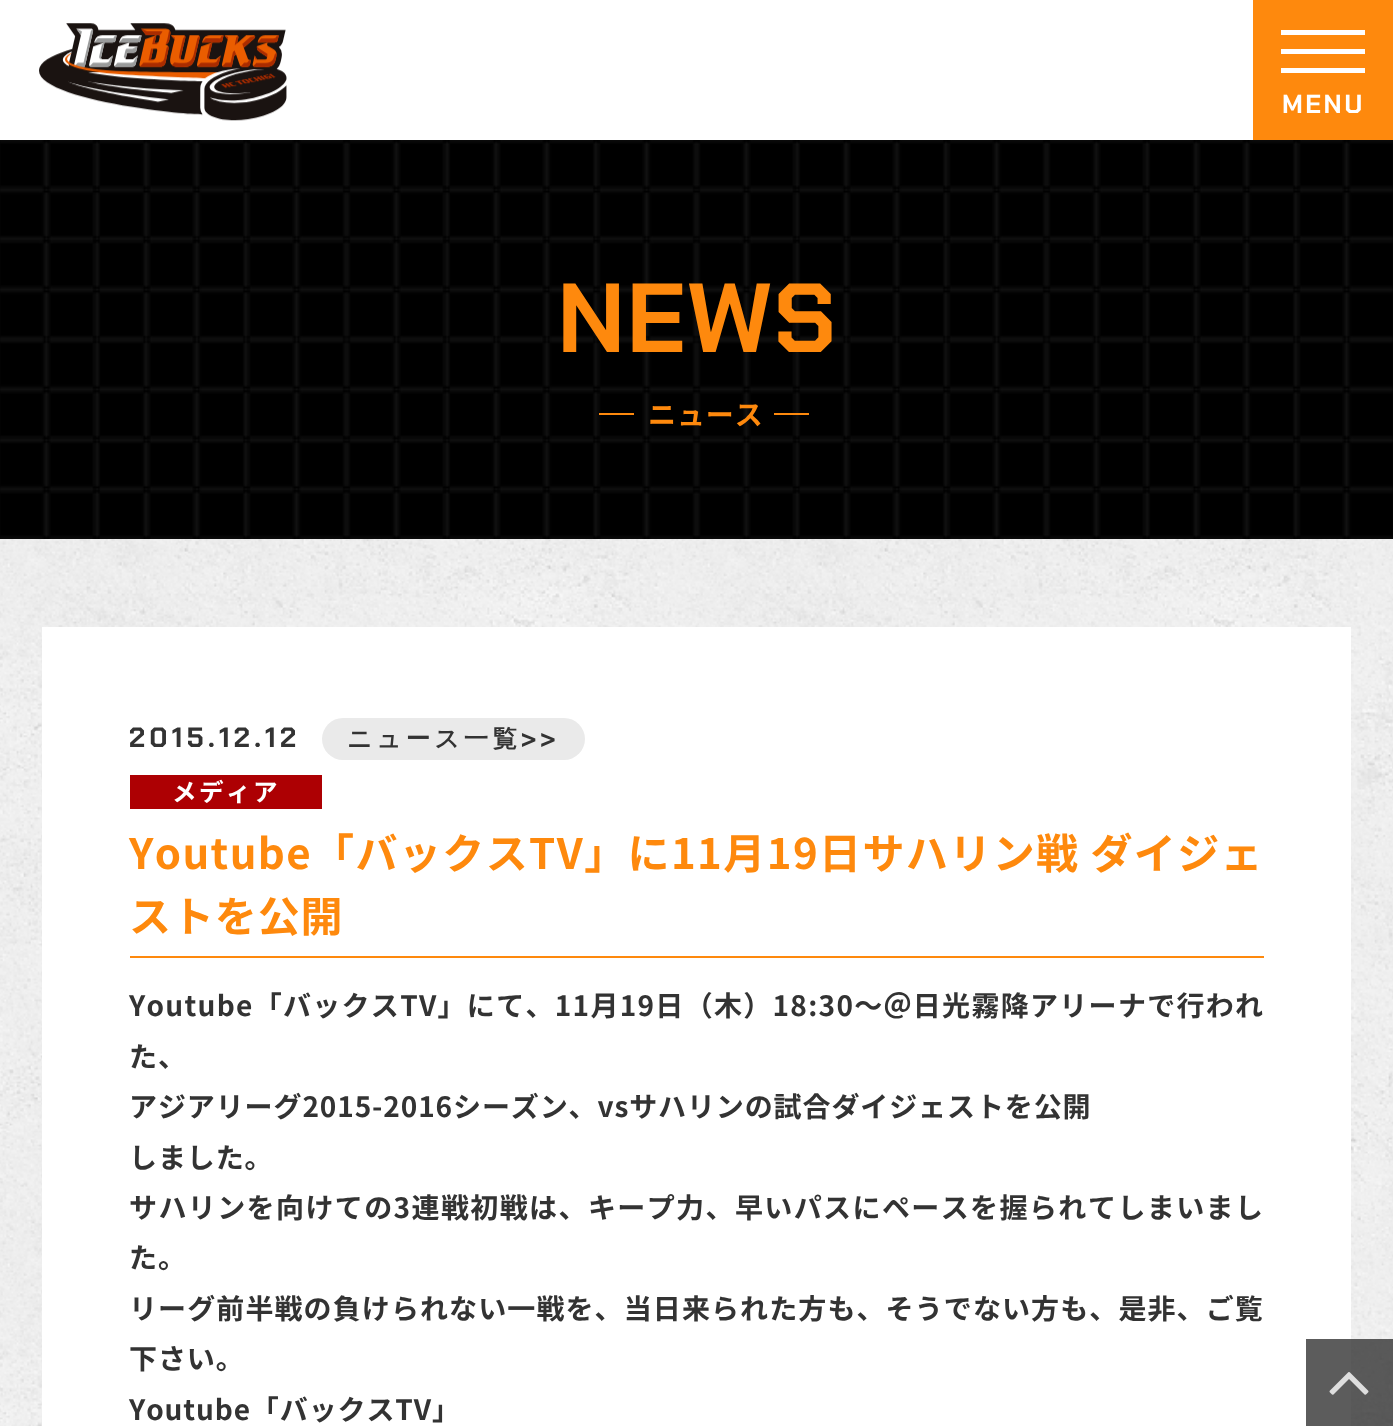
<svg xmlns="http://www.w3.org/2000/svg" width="1393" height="1426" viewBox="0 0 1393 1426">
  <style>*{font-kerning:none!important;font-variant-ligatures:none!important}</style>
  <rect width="100%" height="100%" fill="rgb(255,255,255)"/>
  <image x="39" y="23" width="248" height="98" href="pic1.png"/>
  <rect x="1253" y="0" width="140" height="140" fill="rgb(254,137,13)"/>
  <rect x="1281" y="30" width="84" height="5" fill="rgb(255,255,255)"/>
  <rect x="1281" y="49" width="84" height="5" fill="rgb(255,255,255)"/>
  <rect x="1281" y="68" width="84" height="5" fill="rgb(255,255,255)"/>
  <text x="1282" y="113" font-family="Chakra Petch" font-size="26" font-weight="bold" letter-spacing="2.5" fill="rgb(255,255,255)">MENU</text>
  <image x="0" y="140" width="1393" height="399" href="pic2.png"/>
  <text x="557" y="352" font-family="Chakra Petch" font-size="98" font-weight="bold" letter-spacing="0.9" fill="rgb(254,137,13)">NEWS</text>
  <rect x="599" y="413" width="35" height="2" fill="rgb(254,137,13)"/>
  <text x="648" y="425" font-family="Noto Sans CJK JP" font-size="28" font-weight="bold" letter-spacing="0.9" fill="rgb(254,137,13)">ニュース</text>
  <rect x="774" y="413" width="35" height="2" fill="rgb(254,137,13)"/>
  <image x="0" y="539" width="1393" height="887" href="pic3.png"/>
  <rect x="42" y="627" width="1309" height="799" fill="rgb(255,255,255)"/>
  <text x="129" y="747" font-family="Chakra Petch" font-size="28" font-weight="bold" letter-spacing="4.25" fill="rgb(51,51,51)">2015.12.12</text>
  <rect x="322" y="718" width="263" height="42" rx="21" fill="rgb(234,234,234)"/>
  <text x="347" y="747" font-family="WenQuanYi Zen Hei" font-size="24.5" font-weight="bold" letter-spacing="4.25" fill="rgb(51,51,51)">ニュース一覧</text>
  <text x="521" y="747" font-family="Chakra Petch" font-size="24.5" font-weight="bold" letter-spacing="4.25" fill="rgb(51,51,51)">&gt;&gt;</text>
  <rect x="130" y="775" width="192" height="34" fill="rgb(173,0,3)"/>
  <text x="172" y="801" font-family="Noto Sans CJK JP" font-size="24.5" font-weight="bold" letter-spacing="2.5" fill="rgb(255,255,255)">メディア</text>
  <rect x="130" y="956" width="1134" height="2" fill="rgb(254,137,13)"/>
  <text x="129" y="869" font-family="Noto Sans CJK JP" font-size="42" font-weight="bold" letter-spacing="1.4" fill="rgb(254,137,13)">Youtube「バックスTV」に11月19日サハリン戦 ダイジェ</text>
  <text x="129" y="932" font-family="Noto Sans CJK JP" font-size="42" font-weight="bold" letter-spacing="0.9" fill="rgb(254,137,13)">ストを公開</text>
  <text x="129" y="1016" font-family="Noto Sans CJK JP" font-size="28" font-weight="bold" letter-spacing="1.3" fill="rgb(51,51,51)">Youtube「バックスTV」にて、11月19日（木）18:30～＠日光霧降アリーナで行われ</text>
  <g font-family="Noto Sans CJK JP" font-size="28" font-weight="bold" letter-spacing="0.9" fill="rgb(51,51,51)">
    <text>
      <tspan x="129" y="1067">た、</tspan>
      <tspan x="129" y="1117">アジアリーグ2015-2016シーズン、vsサ</tspan>
    </text>
    <text x="658" y="1117">ハリンの試合ダイジェストを公開</text>
    <text x="129" y="1168">しました。</text>
  </g>
  <text x="129" y="1218" font-family="Noto Sans CJK JP" font-size="28" font-weight="bold" letter-spacing="1.4" fill="rgb(51,51,51)">サハリンを向けての3連戦初戦は、キープ力、早いパスにペースを握られ</text>
  <text x="1088" y="1218" font-family="Noto Sans CJK JP" font-size="28" font-weight="bold" letter-spacing="1.4" fill="rgb(51,51,51)">てしまいまし</text>
  <text x="129" y="1268" font-family="Noto Sans CJK JP" font-size="28" font-weight="bold" letter-spacing="0.9" fill="rgb(51,51,51)">た。</text>
  <text x="129" y="1319" font-family="Noto Sans CJK JP" font-size="28" font-weight="bold" letter-spacing="1.1" fill="rgb(51,51,51)">リーグ前半戦の負けられない一戦を、当日来られた方も、そうでない方も、是非、ご覧</text>
  <g font-family="Noto Sans CJK JP" font-size="28" font-weight="bold" letter-spacing="0.9" fill="rgb(51,51,51)">
    <text>
      <tspan x="129" y="1369">下さい。</tspan>
      <tspan x="129" y="1420">Youtube「バックスTV」</tspan>
    </text>
  </g>
  <rect x="1306" y="1339" width="87" height="87" fill="rgba(51,51,51,0.8)"/>
  <image x="1329" y="1372" width="40" height="23" href="pic4.png"/>
</svg>
